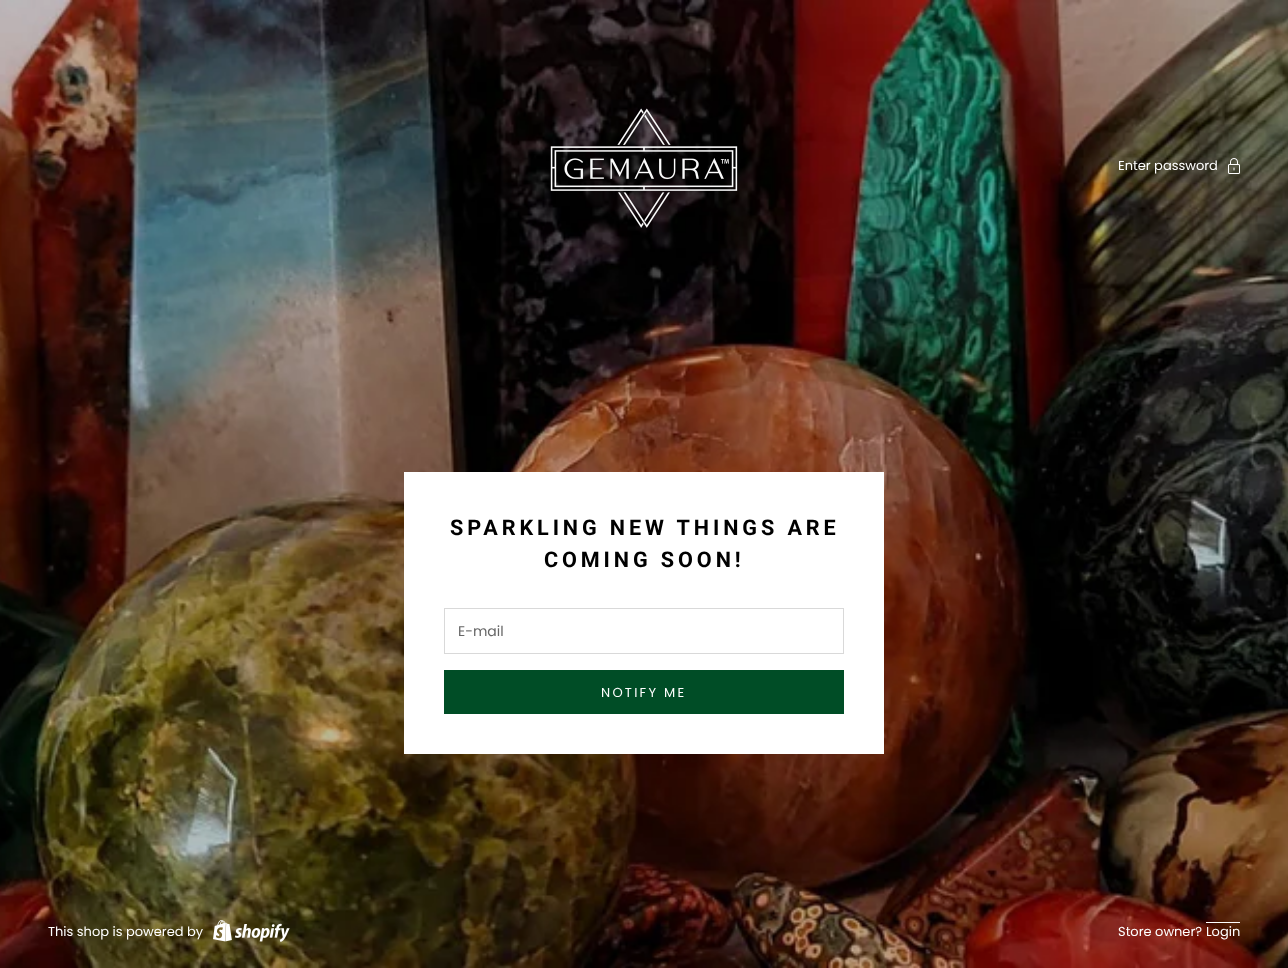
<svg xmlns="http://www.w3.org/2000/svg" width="1288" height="968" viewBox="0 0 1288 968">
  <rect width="100%" height="100%" fill="rgb(255,255,255)"/>
  <image x="0" y="0" width="1288" height="968" href="pic1.png"/>
  <image x="550" y="108" width="188" height="120" href="pic2.png"/>
  <text x="1118" y="170" font-family="Poppins" font-size="13" fill="rgb(255,255,255)">Enter password</text>
  <image x="1228" y="158" width="12" height="16" href="pic3.png"/>
  <rect x="404" y="472" width="480" height="282" fill="rgb(255,255,255)"/>
  <g font-family="Roboto" font-size="21.6" font-weight="bold" letter-spacing="3.9" fill="rgb(0,0,0)">
    <text x="450" y="535">SPARKLING NEW THINGS ARE</text>
    <text x="544" y="567">COMING SOON!</text>
  </g>
  <rect x="444.5" y="608.5" width="399" height="45" fill="none" stroke="rgb(217,217,217)"/>
  <text x="458" y="636" font-family="Poppins" font-size="14" fill="rgb(102,102,102)">E-mail</text>
  <rect x="444.5" y="670.5" width="399" height="43" fill="rgb(0,77,38)" stroke="rgb(0,77,38)"/>
  <text x="601" y="697" font-family="Poppins" font-size="13" letter-spacing="2.25" fill="rgb(255,255,255)">NOTIFY ME</text>
  <text x="48" y="936" font-family="Poppins" font-size="13" fill="rgb(255,255,255)">This shop is powered by</text>
  <image x="213" y="920" width="77" height="22" href="pic4.png"/>
  <g font-family="Poppins" font-size="13" fill="rgb(255,255,255)">
    <text x="1118" y="936">Store owner?</text>
    <text x="1206" y="936">Login</text>
  </g>
  <rect x="1206" y="922" width="34" height="1" fill="rgb(255,255,255)"/>
</svg>
